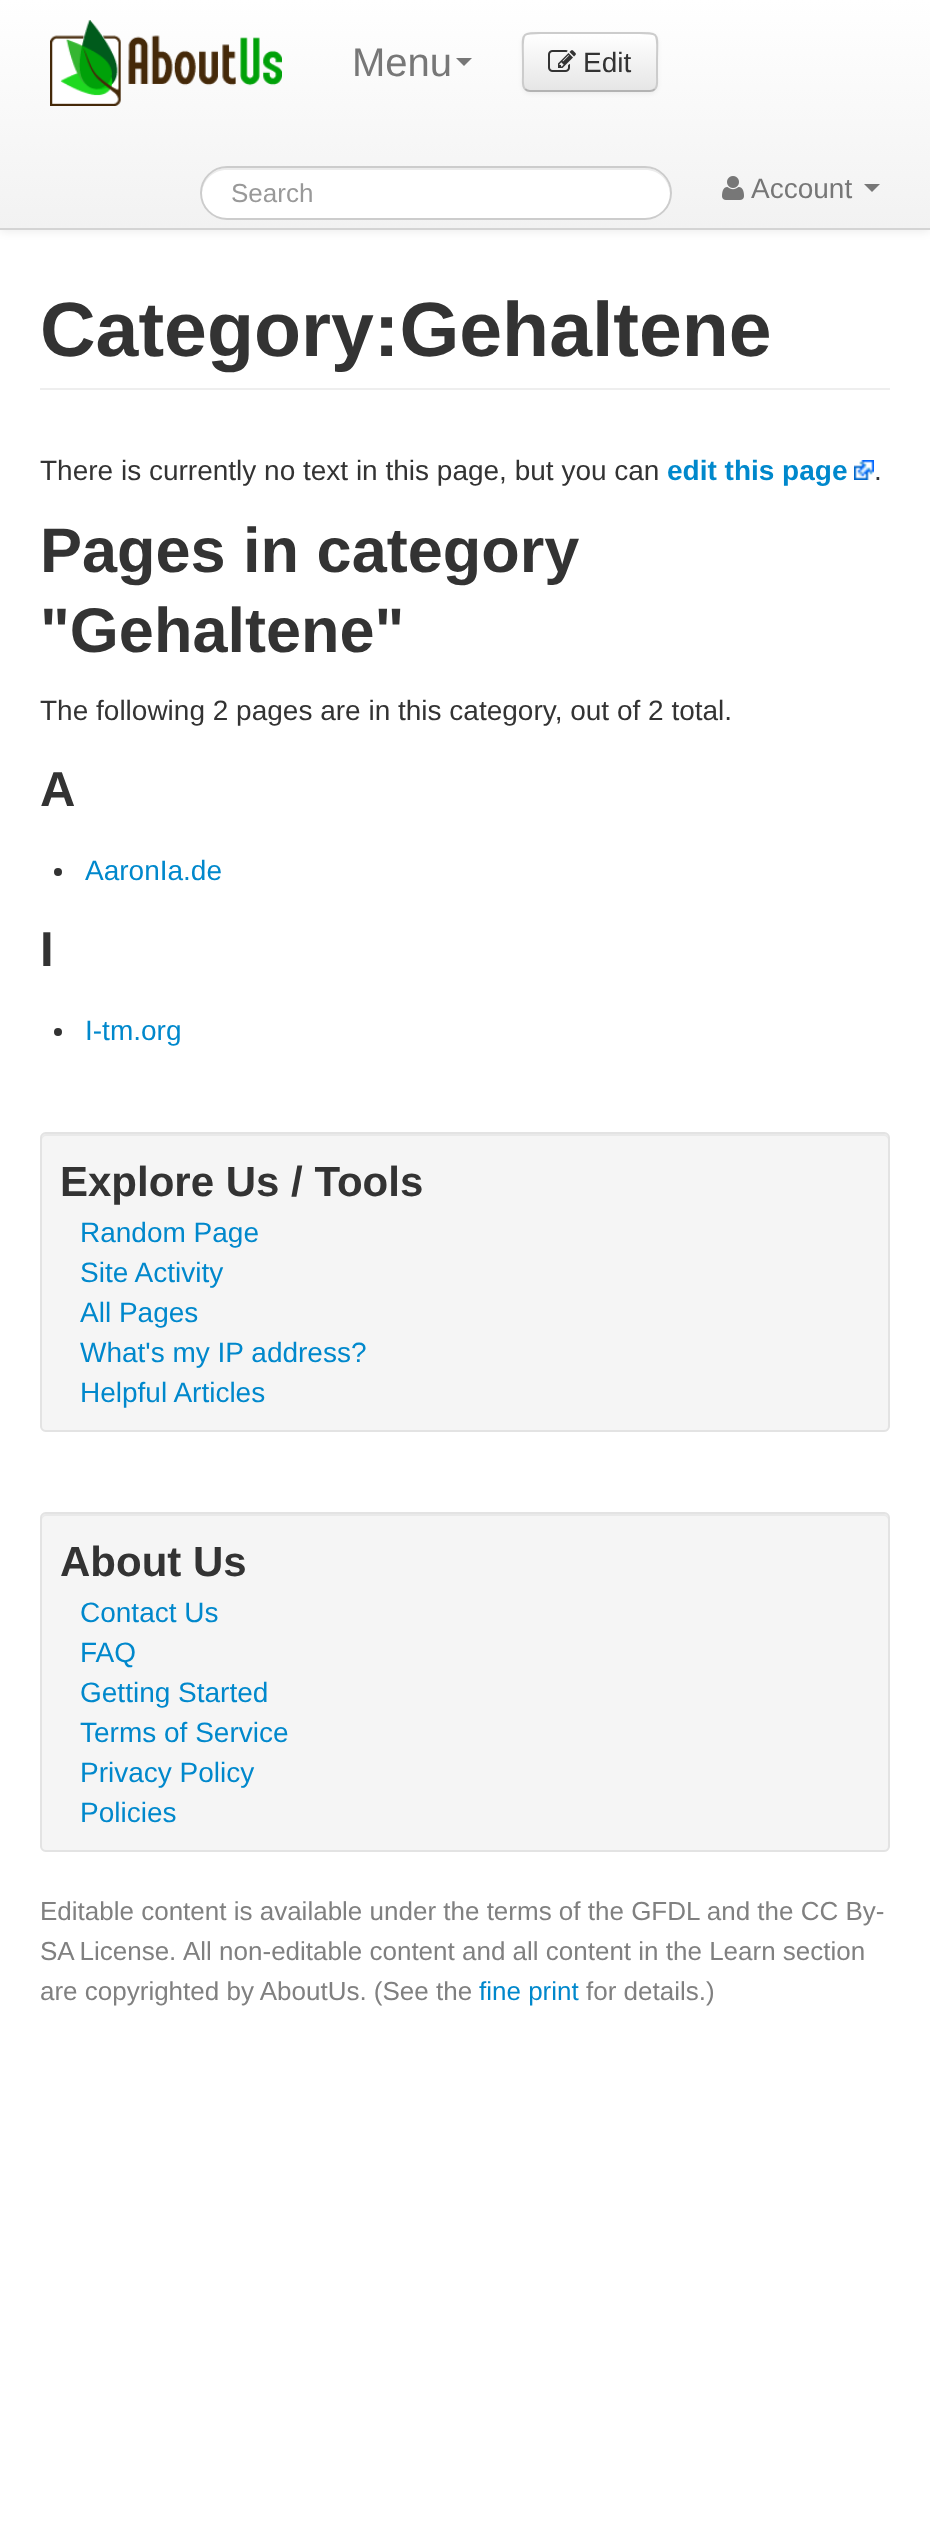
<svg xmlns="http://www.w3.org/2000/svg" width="930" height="2521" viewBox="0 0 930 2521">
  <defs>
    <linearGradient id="g1" gradientUnits="userSpaceOnUse" x1="465" y1="0" x2="465" y2="228"><stop offset="0" stop-color="rgb(255,255,255)"/><stop offset="1" stop-color="rgb(242,242,242)"/></linearGradient>
    <clipPath id="clip1"><rect x="522" y="32" width="136" height="60" rx="8"/></clipPath>
    <linearGradient id="g2" gradientUnits="userSpaceOnUse" x1="590" y1="34" x2="590" y2="90"><stop offset="0" stop-color="rgb(255,255,255)"/><stop offset="1" stop-color="rgb(230,230,230)"/></linearGradient>
  </defs>
  <rect width="100%" height="100%" fill="rgb(255,255,255)"/>
  <rect x="0" y="2" width="930" height="230" fill="rgba(0,0,0,0.07)" filter="blur(4px)"/>
  <rect x="0" y="0" width="930" height="228" fill="url(#g1)"/>
  <rect x="0" y="228" width="930" height="2" fill="rgb(212,212,212)"/>
  <image x="50" y="20" width="232" height="86" href="pic1.png"/>
  <text x="352" y="76" font-family="Liberation Sans" font-size="40" fill="rgb(119,119,119)">Menu</text>
  <path d="M456 58H472L464 66Z" fill="rgb(119,119,119)"/>
  <rect x="522" y="34" width="136" height="60" rx="8" fill="rgba(0,0,0,0.05)" filter="blur(2px)"/>
  <rect x="522" y="32" width="136" height="60" rx="8" fill="rgb(245,245,245)"/>
  <g clip-path="url(#clip1)">
    <rect x="522" y="34" width="136" height="56" fill="url(#g2)"/>
  </g>
  <path d="M655 89C653.5 90.5 652 91 650 91H530C528 91 526.5 90.5 525 89" fill="none" stroke="rgb(179,179,179)" stroke-width="2"/>
  <path d="M525 89C522 86 523 80.5 523 76.5V62C523 30 518 33 550 33H630C662 33 657 30 657 62V76.5C657 80.5 658 86 655 89" fill="none" stroke="rgb(204,204,204)" stroke-width="2"/>
  <image x="548" y="50" width="28" height="22" href="pic2.png"/>
  <text x="583" y="72" font-family="Liberation Sans" font-size="28" fill="rgb(51,51,51)">Edit</text>
  <rect x="200" y="166" width="472" height="54" rx="27" fill="rgb(255,255,255)"/>
  <path d="M227 170H645C659 170 669 180 670 194C671 180 659 168 645 168H227C213 168 201 180 202 194C203 180 213 170 227 170Z" fill="rgb(236,236,236)"/>
  <rect x="201" y="167" width="470" height="52" rx="26" fill="none" stroke="rgb(204,204,204)" stroke-width="2"/>
  <text x="231" y="202" font-family="Liberation Sans" font-size="26" fill="rgb(153,153,153)">Search</text>
  <image x="722" y="176" width="22" height="24" href="pic3.png"/>
  <text x="751" y="198" font-family="Liberation Sans" font-size="28" fill="rgb(119,119,119)">Account</text>
  <path d="M864 184H880L872 192Z" fill="rgb(119,119,119)"/>
  <rect x="40" y="388" width="850" height="2" fill="rgb(238,238,238)"/>
  <text x="40" y="356" font-family="Liberation Sans" font-size="77" font-weight="bold" fill="rgb(51,51,51)">Category:Gehaltene</text>
  <text x="40" y="480" font-family="Liberation Sans" font-size="28" fill="rgb(51,51,51)">There is currently no text in this page, but you can</text>
  <text x="667" y="480" font-family="Liberation Sans" font-size="28" font-weight="bold" fill="rgb(0,136,204)">edit this page</text>
  <image x="854" y="460" width="20" height="20" href="pic4.png"/>
  <text x="874" y="480" font-family="Liberation Sans" font-size="28" fill="rgb(51,51,51)">.</text>
  <g font-family="Liberation Sans" font-size="63" font-weight="bold" fill="rgb(51,51,51)">
    <text>
      <tspan x="40" y="572">Pages in category</tspan>
      <tspan x="40" y="652">"Gehaltene"</tspan>
    </text>
  </g>
  <text x="40" y="720" font-family="Liberation Sans" font-size="28" fill="rgb(51,51,51)">The following 2 pages are in this category, out of 2 total.</text>
  <text x="40" y="806" font-family="Liberation Sans" font-size="49" font-weight="bold" fill="rgb(51,51,51)">A</text>
  <circle cx="58" cy="872" r="4" fill="rgb(51,51,51)"/>
  <text x="85" y="880" font-family="Liberation Sans" font-size="28" fill="rgb(0,136,204)">AaronIa.de</text>
  <text x="40" y="966" font-family="Liberation Sans" font-size="49" font-weight="bold" fill="rgb(51,51,51)">I</text>
  <circle cx="58" cy="1032" r="4" fill="rgb(51,51,51)"/>
  <text x="85" y="1040" font-family="Liberation Sans" font-size="28" fill="rgb(0,136,204)">I-tm.org</text>
  <rect x="40" y="1132" width="850" height="300" rx="6" fill="rgb(245,245,245)"/>
  <path d="M46 1136H884C886 1136 888 1138 888 1140V1138C888 1136 886 1134 884 1134H46C44 1134 42 1136 42 1138V1140C42 1138 44 1136 46 1136Z" fill="rgb(233,233,233)"/>
  <rect x="41" y="1133" width="848" height="298" rx="5" fill="none" stroke="rgb(227,227,227)" stroke-width="2"/>
  <text x="60" y="1196" font-family="Liberation Sans" font-size="42" font-weight="bold" fill="rgb(51,51,51)">Explore Us / Tools</text>
  <g font-family="Liberation Sans" font-size="28" fill="rgb(0,136,204)">
    <text>
      <tspan x="80" y="1242">Random Page</tspan>
      <tspan x="80" y="1282">Site Activity</tspan>
      <tspan x="80" y="1322">All Pages</tspan>
      <tspan x="80" y="1362">What's my IP address?</tspan>
      <tspan x="80" y="1402">Helpful Articles</tspan>
    </text>
  </g>
  <rect x="40" y="1512" width="850" height="340" rx="6" fill="rgb(245,245,245)"/>
  <path d="M46 1516H884C886 1516 888 1518 888 1520V1518C888 1516 886 1514 884 1514H46C44 1514 42 1516 42 1518V1520C42 1518 44 1516 46 1516Z" fill="rgb(233,233,233)"/>
  <rect x="41" y="1513" width="848" height="338" rx="5" fill="none" stroke="rgb(227,227,227)" stroke-width="2"/>
  <text x="60" y="1576" font-family="Liberation Sans" font-size="42" font-weight="bold" fill="rgb(51,51,51)">About Us</text>
  <g font-family="Liberation Sans" font-size="28" fill="rgb(0,136,204)">
    <text>
      <tspan x="80" y="1622">Contact Us</tspan>
      <tspan x="80" y="1662">FAQ</tspan>
      <tspan x="80" y="1702">Getting Started</tspan>
      <tspan x="80" y="1742">Terms of Service</tspan>
      <tspan x="80" y="1782">Privacy Policy</tspan>
      <tspan x="80" y="1822">Policies</tspan>
    </text>
  </g>
  <g font-family="Liberation Sans" font-size="26" fill="rgb(128,128,128)">
    <text>
      <tspan x="40" y="1920">Editable content is available under the terms of the GFDL and the CC By-</tspan>
      <tspan x="40" y="1960" word-spacing="-1">SA License.</tspan>
    </text>
    <text x="183" y="1960">All non-editable content and all content in the Learn section</text>
    <text x="40" y="2000">are copyrighted by AboutUs. (See the</text>
  </g>
  <text x="479" y="2000" font-family="Liberation Sans" font-size="26" fill="rgb(0,136,204)">fine print</text>
  <text x="586" y="2000" font-family="Liberation Sans" font-size="26" fill="rgb(128,128,128)">for details.)</text>
</svg>
